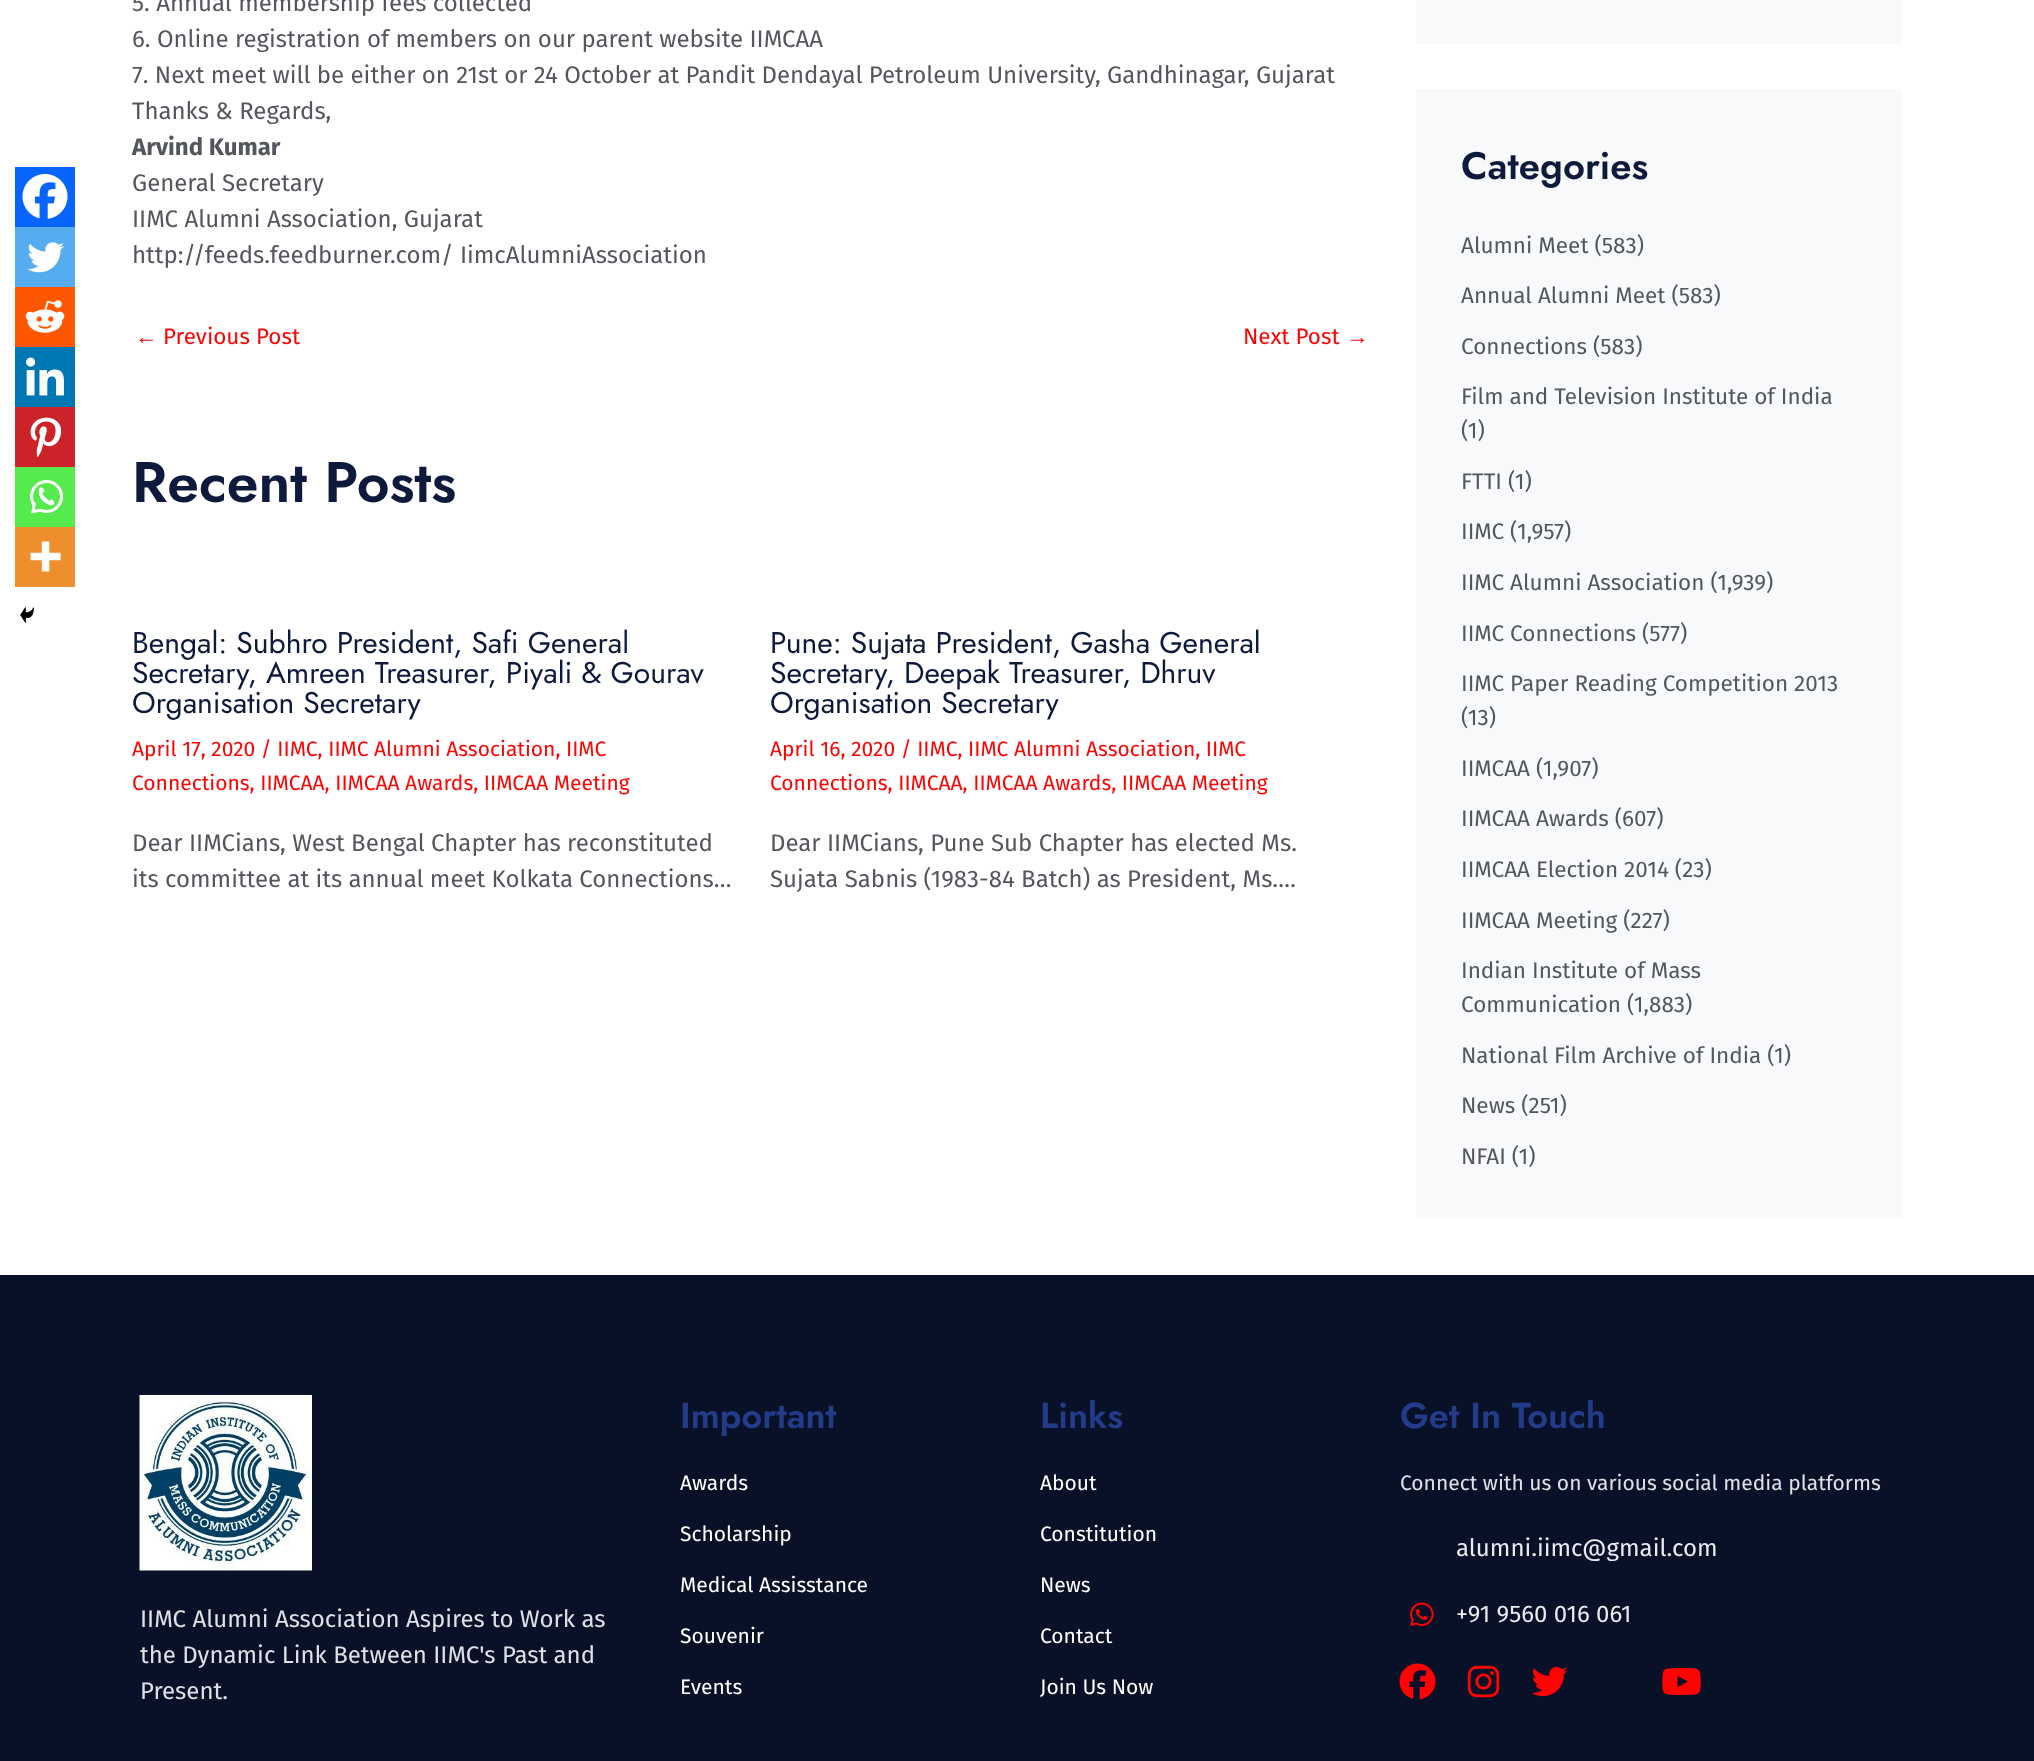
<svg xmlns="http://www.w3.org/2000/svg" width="2034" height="1761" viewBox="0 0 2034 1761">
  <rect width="100%" height="100%" fill="rgb(255,255,255)"/>
  <g font-family="Fira Sans" font-size="24" fill="rgb(83,86,92)">
    <text>
      <tspan x="132" y="11">5. Annual membership fees collected</tspan>
      <tspan x="132" y="47">6. Online registration of members on our parent website IIMCAA</tspan>
      <tspan x="132" y="83">7. Next meet will be either on 21st or 24 October at Pandit Dendayal Petroleum University, Gandhinagar, Gujarat</tspan>
      <tspan x="132" y="119">Thanks &amp; Regards,</tspan>
    </text>
  </g>
  <text x="132" y="155" font-family="Fira Sans" font-size="24" font-weight="bold" fill="rgb(83,86,92)">Arvind Kumar</text>
  <g font-family="Fira Sans" font-size="24" fill="rgb(83,86,92)">
    <text>
      <tspan x="132" y="191">General Secretary</tspan>
      <tspan x="132" y="227">IIMC Alumni Association, Gujarat</tspan>
    </text>
  </g>
  <rect x="15" y="167" width="60" height="60" fill="rgb(7,101,254)"/>
  <image x="22" y="174" width="46" height="45" href="pic1.png"/>
  <rect x="15" y="227" width="60" height="60" fill="rgb(85,172,238)"/>
  <image x="27" y="242" width="37" height="31" href="pic2.png"/>
  <rect x="15" y="287" width="60" height="60" fill="rgb(255,87,0)"/>
  <image x="25" y="300" width="40" height="33" href="pic3.png"/>
  <rect x="15" y="347" width="60" height="60" fill="rgb(0,119,181)"/>
  <image x="26" y="357" width="38" height="39" href="pic4.png"/>
  <rect x="15" y="407" width="60" height="60" fill="rgb(204,35,41)"/>
  <image x="30" y="417" width="32" height="40" href="pic5.png"/>
  <rect x="15" y="467" width="60" height="60" fill="rgb(85,235,76)"/>
  <image x="30" y="480" width="33" height="34" href="pic6.png"/>
  <rect x="15" y="527" width="60" height="60" fill="rgb(238,142,45)"/>
  <image x="30" y="541" width="31" height="31" href="pic7.png"/>
  <image x="20" y="606" width="14" height="18" href="pic8.png"/>
  <text x="132" y="263" font-family="Fira Sans" font-size="24" fill="rgb(83,86,92)">http://feeds.feedburner.com/ IimcAlumniAssociation</text>
  <text x="135" y="344" font-family="Liberation Sans" font-size="22.5" fill="rgb(255,2,2)">←</text>
  <g font-family="Fira Sans" font-size="22.5" fill="rgb(255,2,2)">
    <text x="163" y="344">Previous Post</text>
    <text x="1243" y="344">Next Post</text>
  </g>
  <text x="1346" y="344" font-family="Liberation Sans" font-size="22.5" fill="rgb(255,2,2)">→</text>
  <text x="132" y="502" font-family="Jost" font-size="57" font-weight="600" fill="rgb(14,26,60)">Recent Posts</text>
  <g font-family="Jost" font-size="30" fill="rgb(14,26,60)">
    <text>
      <tspan x="132" y="653">Bengal: Subhro President, Safi General</tspan>
      <tspan x="132" y="683">Secretary, Amreen Treasurer, Piyali &amp; Gourav</tspan>
      <tspan x="132" y="713">Organisation Secretary</tspan>
    </text>
  </g>
  <g font-family="Fira Sans" font-size="21" fill="rgb(255,2,2)">
    <text>
      <tspan x="132" y="756">April 17, 2020 / IIMC, IIMC Alumni Association, IIMC</tspan>
      <tspan x="132" y="790">Connections, IIMCAA, IIMCAA Awards, IIMCAA Meeting</tspan>
    </text>
  </g>
  <g font-family="Fira Sans" font-size="24" fill="rgb(83,86,92)">
    <text>
      <tspan x="132" y="851">Dear IIMCians, West Bengal Chapter has reconstituted</tspan>
      <tspan x="132" y="887">its committee at its annual meet Kolkata Connections…</tspan>
    </text>
  </g>
  <g font-family="Jost" font-size="30" fill="rgb(14,26,60)">
    <text>
      <tspan x="770" y="653">Pune: Sujata President, Gasha General</tspan>
      <tspan x="770" y="683">Secretary, Deepak Treasurer, Dhruv</tspan>
      <tspan x="770" y="713">Organisation Secretary</tspan>
    </text>
  </g>
  <g font-family="Fira Sans" font-size="21" fill="rgb(255,2,2)">
    <text>
      <tspan x="770" y="756">April 16, 2020 / IIMC, IIMC Alumni Association, IIMC</tspan>
      <tspan x="770" y="790">Connections, IIMCAA, IIMCAA Awards, IIMCAA Meeting</tspan>
    </text>
  </g>
  <g font-family="Fira Sans" font-size="24" fill="rgb(83,86,92)">
    <text>
      <tspan x="770" y="851">Dear IIMCians, Pune Sub Chapter has elected Ms.</tspan>
      <tspan x="770" y="887">Sujata Sabnis (1983-84 Batch) as President, Ms.…</tspan>
    </text>
  </g>
  <rect x="1416" y="0" width="486" height="44" fill="rgb(248,249,250)"/>
  <rect x="1416" y="89" width="486" height="1129" fill="rgb(248,249,250)"/>
  <text x="1461" y="179" font-family="Jost" font-size="38.25" font-weight="600" fill="rgb(14,26,60)">Categories</text>
  <g font-family="Fira Sans" font-size="22.5" fill="rgb(83,86,92)">
    <text x="1461" y="253">Alumni Meet (583)</text>
    <text x="1461" y="303">Annual Alumni Meet (583)</text>
    <text x="1461" y="354">Connections (583)</text>
    <text>
      <tspan x="1461" y="404">Film and Television Institute of India</tspan>
      <tspan x="1461" y="438">(1)</tspan>
    </text>
    <text x="1461" y="489">FTTI (1)</text>
    <text x="1461" y="539">IIMC (1,957)</text>
    <text x="1461" y="590">IIMC Alumni Association (1,939)</text>
    <text x="1461" y="641">IIMC Connections (577)</text>
    <text>
      <tspan x="1461" y="691">IIMC Paper Reading Competition 2013</tspan>
      <tspan x="1461" y="725">(13)</tspan>
    </text>
    <text x="1461" y="776">IIMCAA (1,907)</text>
    <text x="1461" y="826">IIMCAA Awards (607)</text>
    <text x="1461" y="877">IIMCAA Election 2014 (23)</text>
    <text x="1461" y="928">IIMCAA Meeting (227)</text>
    <text>
      <tspan x="1461" y="978">Indian Institute of Mass</tspan>
      <tspan x="1461" y="1012">Communication (1,883)</tspan>
    </text>
    <text x="1461" y="1063">National Film Archive of India (1)</text>
    <text x="1461" y="1113">News (251)</text>
    <text x="1461" y="1164">NFAI (1)</text>
  </g>
  <rect x="0" y="1275" width="2034" height="486" fill="rgb(9,17,40)"/>
  <image x="139" y="1395" width="173" height="176" href="pic9.png"/>
  <g font-family="Fira Sans" font-size="24" fill="rgb(222,226,230)">
    <text>
      <tspan x="140" y="1627">IIMC Alumni Association Aspires to Work as</tspan>
      <tspan x="140" y="1663">the Dynamic Link Between IIMC's Past and</tspan>
      <tspan x="140" y="1699">Present.</tspan>
    </text>
  </g>
  <text x="680" y="1428" font-family="Jost" font-size="36" font-weight="600" fill="rgb(34,60,137)">Important</text>
  <g font-family="Fira Sans" font-size="21" fill="rgb(255,255,255)">
    <text x="680" y="1490">Awards</text>
    <text x="680" y="1541">Scholarship</text>
    <text x="680" y="1592">Medical Assisstance</text>
    <text x="680" y="1643">Souvenir</text>
    <text x="680" y="1694">Events</text>
  </g>
  <text x="1040" y="1428" font-family="Jost" font-size="36" font-weight="600" fill="rgb(34,60,137)">Links</text>
  <g font-family="Fira Sans" font-size="21" fill="rgb(255,255,255)">
    <text x="1040" y="1490">About</text>
    <text x="1040" y="1541">Constitution</text>
    <text x="1040" y="1592">News</text>
    <text x="1040" y="1643">Contact</text>
    <text x="1040" y="1694">Join Us Now</text>
  </g>
  <text x="1400" y="1428" font-family="Jost" font-size="36" font-weight="600" fill="rgb(34,60,137)">Get In Touch</text>
  <text x="1400" y="1490" font-family="Fira Sans" font-size="21" fill="rgb(222,226,230)">Connect with us on various social media platforms</text>
  <text x="1456" y="1556" font-family="Fira Sans" font-size="24" fill="rgb(233,236,239)">alumni.iimc@gmail.com</text>
  <image x="1410" y="1602" width="24" height="25" href="pic10.png"/>
  <text x="1456" y="1622" font-family="Fira Sans" font-size="24" fill="rgb(233,236,239)">+91 9560 016 061</text>
  <image x="1399" y="1663" width="37" height="37" href="pic11.png"/>
  <image x="1467" y="1665" width="33" height="33" href="pic12.png"/>
  <image x="1531" y="1666" width="37" height="31" href="pic13.png"/>
  <image x="1662" y="1668" width="39" height="27" href="pic14.png"/>
</svg>
